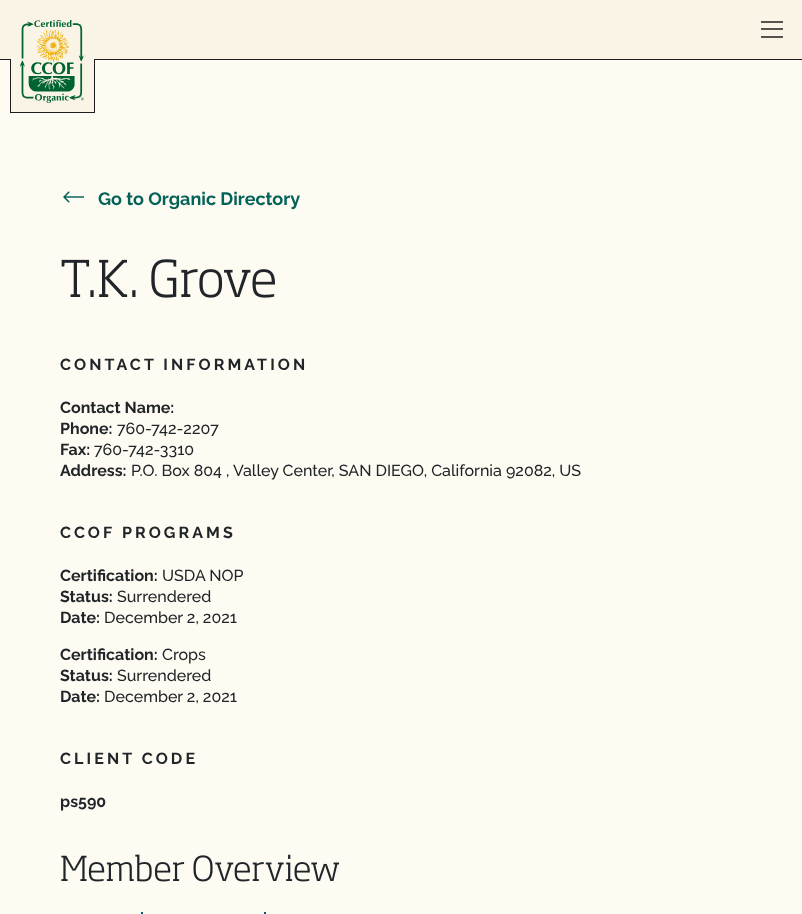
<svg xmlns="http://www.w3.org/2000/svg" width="802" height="914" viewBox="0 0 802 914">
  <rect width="100%" height="100%" fill="rgb(254,251,243)"/>
  <rect x="0" y="0" width="802" height="59" fill="rgb(250,244,231)"/>
  <rect x="0" y="59" width="802" height="1" fill="rgb(32,28,29)"/>
  <rect x="10" y="59" width="84" height="53" fill="rgb(250,244,231)"/>
  <image x="20" y="20" width="64" height="83" href="pic1.png"/>
  <rect x="94" y="59" width="1" height="54" fill="rgb(32,28,29)"/>
  <rect x="10" y="112" width="85" height="1" fill="rgb(32,28,29)"/>
  <rect x="10" y="59" width="1" height="54" fill="rgb(32,28,29)"/>
  <path d="M761 22H783M761 29H783M761 37H783" fill="none" stroke="rgb(32,28,29)" stroke-width="1.5"/>
  <image x="63" y="191" width="21" height="12" href="pic2.png"/>
  <text x="98" y="205" font-family="Raleway" font-size="18" font-weight="bold" fill="rgb(4,99,88)">Go to Organic Directory</text>
  <image x="61" y="259" width="214" height="39" href="pic3.png"/>
  <text x="60" y="370" font-family="Raleway" font-size="16" font-weight="bold" letter-spacing="3.1" fill="rgb(33,37,41)">CONTACT INFORMATION</text>
  <g font-family="Raleway" font-size="16" font-weight="bold" fill="rgb(33,37,41)">
    <text>
      <tspan x="60" y="413">Contact Name:</tspan>
      <tspan x="60" y="434">Phone:</tspan>
    </text>
  </g>
  <text x="117" y="434" font-family="Raleway" font-size="16" font-weight="500" fill="rgb(33,37,41)">760-742-2207</text>
  <text x="60" y="455" font-family="Raleway" font-size="16" font-weight="bold" fill="rgb(33,37,41)">Fax:</text>
  <text x="94" y="455" font-family="Raleway" font-size="16" font-weight="500" fill="rgb(33,37,41)">760-742-3310</text>
  <text x="60" y="476" font-family="Raleway" font-size="16" font-weight="bold" fill="rgb(33,37,41)">Address:</text>
  <text x="131" y="476" font-family="Raleway" font-size="16" font-weight="500" fill="rgb(33,37,41)">P.O. Box 804 , Valley Center, SAN DIEGO, California 92082, US</text>
  <text x="60" y="538" font-family="Raleway" font-size="16" font-weight="bold" letter-spacing="3.1" fill="rgb(33,37,41)">CCOF PROGRAMS</text>
  <text x="60" y="581" font-family="Raleway" font-size="16" font-weight="bold" fill="rgb(33,37,41)">Certification:</text>
  <text x="162" y="581" font-family="Raleway" font-size="16" font-weight="500" fill="rgb(33,37,41)">USDA NOP</text>
  <text x="60" y="602" font-family="Raleway" font-size="16" font-weight="bold" fill="rgb(33,37,41)">Status:</text>
  <text x="117" y="602" font-family="Raleway" font-size="16" font-weight="500" fill="rgb(33,37,41)">Surrendered</text>
  <text x="60" y="623" font-family="Raleway" font-size="16" font-weight="bold" fill="rgb(33,37,41)">Date:</text>
  <text x="104" y="623" font-family="Raleway" font-size="16" font-weight="500" fill="rgb(33,37,41)">December 2, 2021</text>
  <text x="60" y="660" font-family="Raleway" font-size="16" font-weight="bold" fill="rgb(33,37,41)">Certification:</text>
  <text x="162" y="660" font-family="Raleway" font-size="16" font-weight="500" fill="rgb(33,37,41)">Crops</text>
  <text x="60" y="681" font-family="Raleway" font-size="16" font-weight="bold" fill="rgb(33,37,41)">Status:</text>
  <text x="117" y="681" font-family="Raleway" font-size="16" font-weight="500" fill="rgb(33,37,41)">Surrendered</text>
  <text x="60" y="702" font-family="Raleway" font-size="16" font-weight="bold" fill="rgb(33,37,41)">Date:</text>
  <text x="104" y="702" font-family="Raleway" font-size="16" font-weight="500" fill="rgb(33,37,41)">December 2, 2021</text>
  <text x="60" y="764" font-family="Raleway" font-size="16" font-weight="bold" letter-spacing="3.1" fill="rgb(33,37,41)">CLIENT CODE</text>
  <text x="60" y="807" font-family="Raleway" font-size="16" font-weight="bold" fill="rgb(33,37,41)">ps590</text>
  <image x="61" y="854" width="279" height="28" href="pic4.png"/>
  <rect x="141" y="912" width="2" height="2" fill="rgb(0,96,115)"/>
  <rect x="264" y="912" width="2" height="2" fill="rgb(0,96,115)"/>
</svg>
